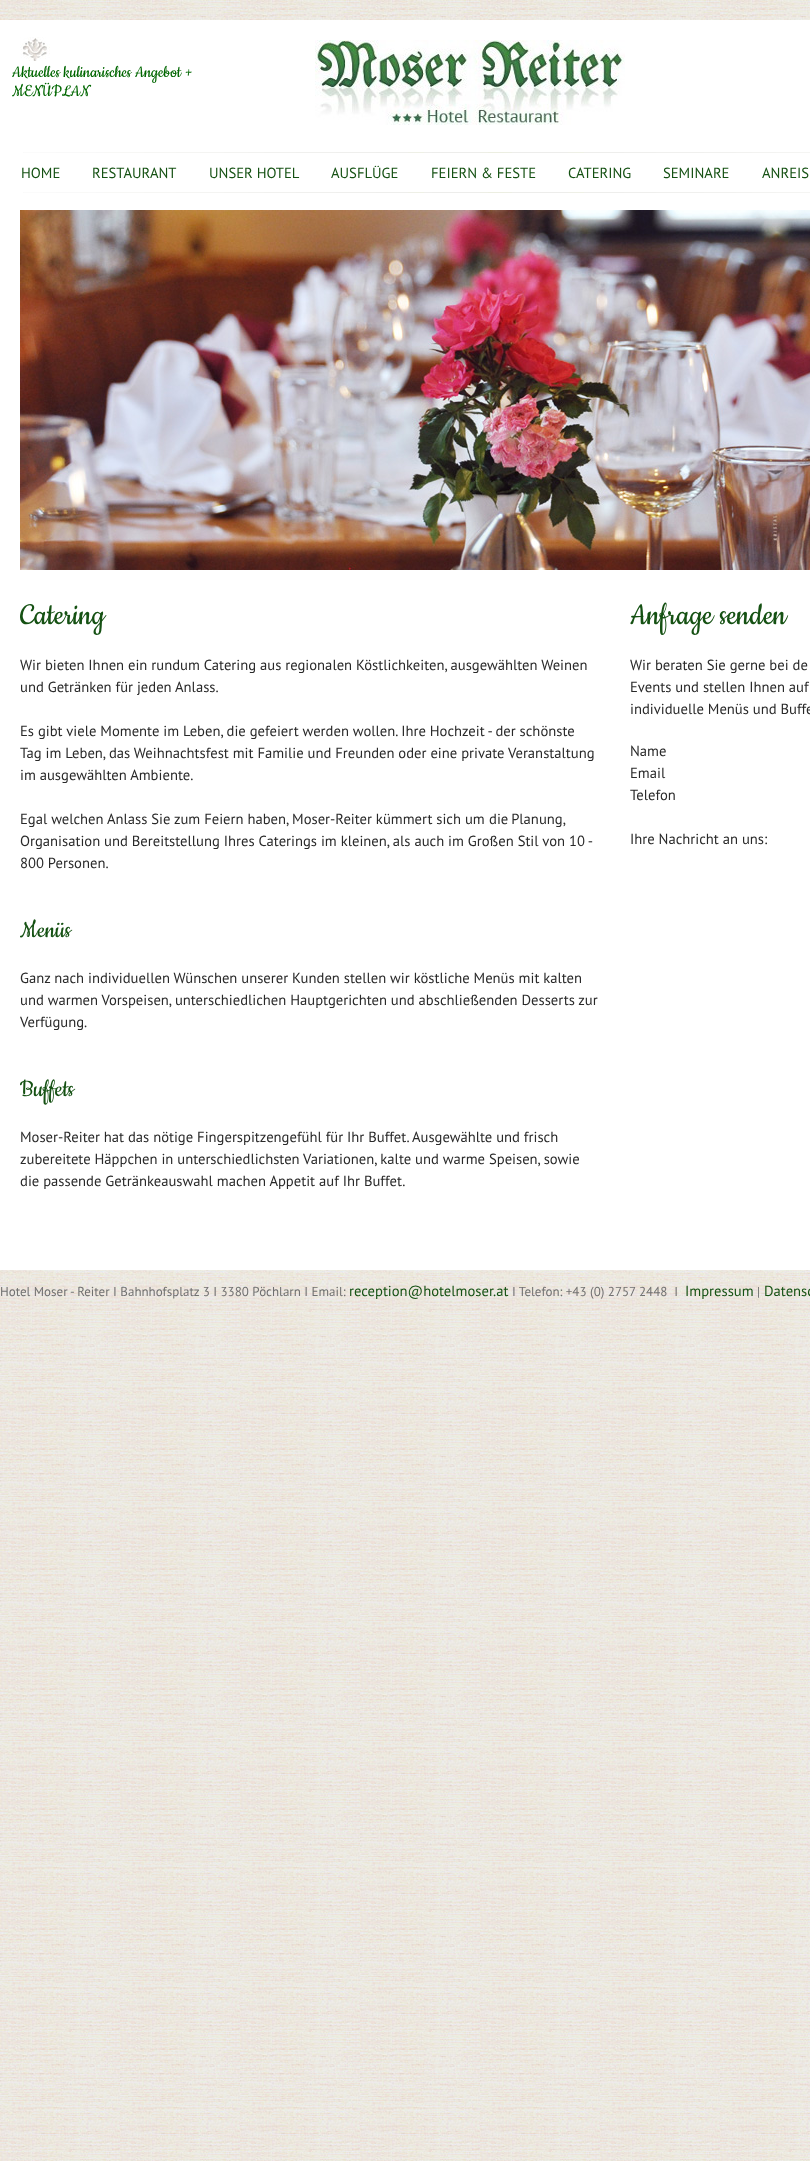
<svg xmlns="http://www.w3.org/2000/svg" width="810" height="2161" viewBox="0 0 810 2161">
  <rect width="100%" height="100%" fill="rgb(255,255,255)"/>
  <image x="0" y="0" width="810" height="2161" href="pic1.png"/>
  <rect x="0" y="20" width="810" height="1250" fill="rgb(255,255,255)"/>
  <image x="20" y="37" width="30" height="24" href="pic2.png"/>
  <image x="315" y="40" width="310" height="85" href="pic3.png"/>
  <g font-family="Cookie" font-size="18.75" fill="rgb(0,102,0)">
    <text>
      <tspan x="12" y="77">Aktuelles kulinarisches Angebot +</tspan>
      <tspan x="12" y="96">MENÜPLAN</tspan>
    </text>
  </g>
  <image x="23" y="152" width="787" height="1" href="pic4.png"/>
  <g font-family="PT Sans" font-size="14.65" fill="rgb(21,81,19)">
    <text x="21" y="178">HOME</text>
    <text x="92" y="178">RESTAURANT</text>
    <text x="209" y="178">UNSER HOTEL</text>
    <text x="331" y="178">AUSFLÜGE</text>
    <text x="431" y="178">FEIERN &amp; FESTE</text>
    <text x="568" y="178">CATERING</text>
    <text x="663" y="178">SEMINARE</text>
    <text x="762" y="178">ANREIS</text>
  </g>
  <image x="23" y="192" width="787" height="1" href="pic4.png"/>
  <image x="20" y="210" width="790" height="360" href="pic5.png"/>
  <text x="20" y="624" font-family="Cookie" font-size="34.5" fill="rgb(21,81,19)">Catering</text>
  <g font-family="PT Sans" font-size="14.65" fill="rgb(41,41,41)">
    <text>
      <tspan x="20" y="670">Wir bieten Ihnen ein rundum Catering aus regionalen Köstlichkeiten, ausgewählten Weinen</tspan>
      <tspan x="20" y="692">und Getränken für jeden Anlass.</tspan>
    </text>
    <text>
      <tspan x="20" y="736">Es gibt viele Momente im Leben, die gefeiert werden wollen. Ihre Hochzeit - der schönste</tspan>
      <tspan x="20" y="758">Tag im Leben, das Weihnachtsfest mit Familie und Freunden oder eine private Veranstaltung</tspan>
      <tspan x="20" y="780">im ausgewählten Ambiente.</tspan>
    </text>
    <text x="20" y="824">Egal welchen Anlass Sie zum Feiern haben, Moser-Reiter kümmert sich um</text>
    <text x="489" y="824" word-spacing="-1">die Planung,</text>
    <text>
      <tspan x="20" y="846">Organisation und Bereitstellung Ihres Caterings im kleinen, als auch im Großen Stil von 10 -</tspan>
      <tspan x="20" y="868">800 Personen.</tspan>
    </text>
  </g>
  <text x="20" y="937" font-family="Cookie" font-size="27" fill="rgb(21,81,19)">Menüs</text>
  <g font-family="PT Sans" font-size="14.65" fill="rgb(41,41,41)">
    <text>
      <tspan x="20" y="983">Ganz nach individuellen Wünschen unserer Kunden stellen wir köstliche Menüs mit kalten</tspan>
      <tspan x="20" y="1005">und warmen Vorspeisen, unterschiedlichen Hauptgerichten und abschließenden Desserts zur</tspan>
      <tspan x="20" y="1027">Verfügung.</tspan>
    </text>
  </g>
  <text x="20" y="1096" font-family="Cookie" font-size="27" fill="rgb(21,81,19)">Buffets</text>
  <g font-family="PT Sans" font-size="14.65" fill="rgb(41,41,41)">
    <text>
      <tspan x="20" y="1142">Moser-Reiter hat das nötige Fingerspitzengefühl für Ihr Buffet. Ausgewählte und frisch</tspan>
      <tspan x="20" y="1164">zubereitete Häppchen in unterschiedlichsten Variationen, kalte und warme Speisen, sowie</tspan>
      <tspan x="20" y="1186">die passende Getränkeauswahl machen Appetit auf Ihr Buffet.</tspan>
    </text>
  </g>
  <text x="630" y="624" font-family="Cookie" font-size="34.5" fill="rgb(21,81,19)">Anfrage senden</text>
  <g font-family="PT Sans" font-size="14.65" fill="rgb(41,41,41)">
    <text>
      <tspan x="630" y="670">Wir beraten Sie gerne bei de</tspan>
      <tspan x="630" y="692">Events und stellen Ihnen auf</tspan>
      <tspan x="630" y="714">individuelle Menüs und Buffe</tspan>
    </text>
    <text>
      <tspan x="630" y="756">Name</tspan>
      <tspan x="630" y="778">Email</tspan>
      <tspan x="630" y="800">Telefon</tspan>
    </text>
    <text x="630" y="844">Ihre Nachricht an uns:</text>
  </g>
  <text x="0" y="1296" font-family="PT Sans" font-size="13" fill="rgb(112,112,112)">Hotel Moser - Reiter I Bahnhofsplatz 3 I 3380 Pöchlarn I Email:</text>
  <text x="349" y="1296" font-family="PT Sans" font-size="14.65" fill="rgb(21,81,19)">reception@hotelmoser.at</text>
  <text x="512" y="1296" font-family="PT Sans" font-size="13" fill="rgb(112,112,112)" xml:space="preserve">I Telefon: +43 (0) 2757 2448  I</text>
  <text x="685" y="1296" font-family="PT Sans" font-size="14.65" fill="rgb(21,81,19)">Impressum</text>
  <text x="757" y="1296" font-family="PT Sans" font-size="13" fill="rgb(112,112,112)">|</text>
  <text x="764" y="1296" font-family="PT Sans" font-size="14.65" fill="rgb(21,81,19)">Datensc</text>
</svg>
